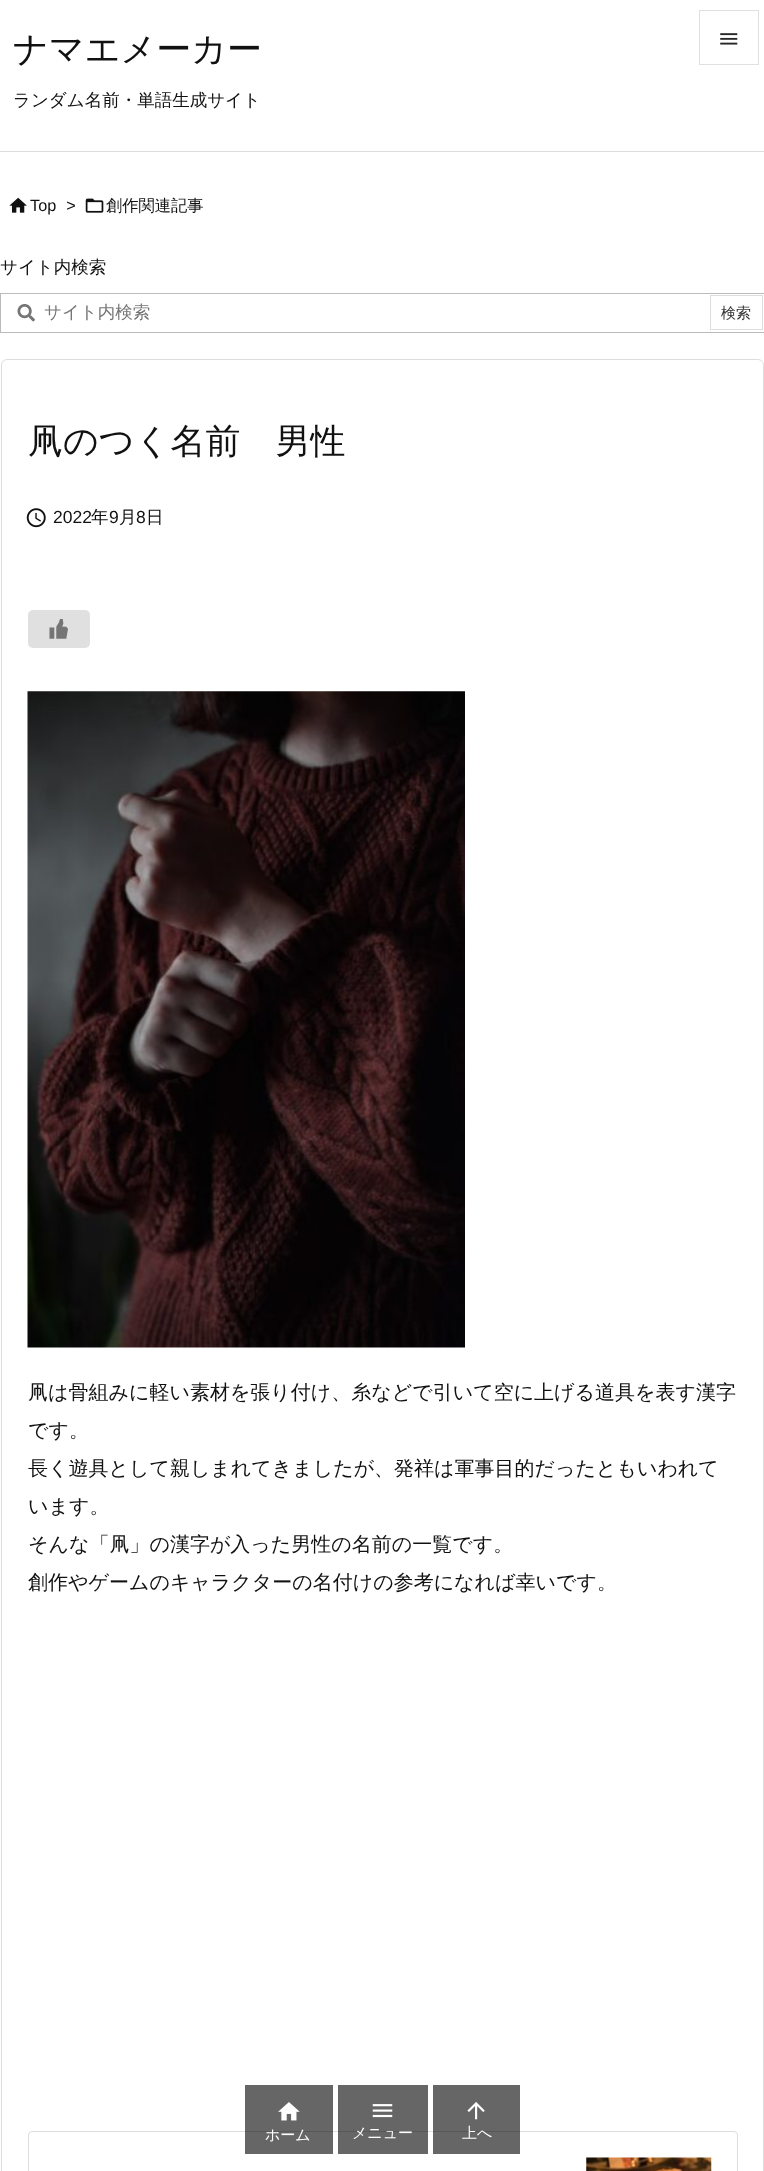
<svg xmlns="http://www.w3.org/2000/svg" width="764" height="2171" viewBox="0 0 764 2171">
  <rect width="100%" height="100%" fill="rgb(255,255,255)"/>
  <rect x="0" y="151" width="764" height="1" fill="rgb(221,221,221)"/>
  <rect x="699.5" y="10.5" width="59" height="54" fill="none" stroke="rgb(224,224,224)"/>
  <image x="720" y="33" width="18" height="12" href="pic1.png"/>
  <text x="13" y="61" font-family="WenQuanYi Zen Hei" font-size="35" font-weight="500" fill="rgb(17,17,17)">ナマエメーカー</text>
  <text x="13" y="106" font-family="WenQuanYi Zen Hei" font-size="17.5" font-weight="500" fill="rgb(17,17,17)">ランダム名前・単語生成サイト</text>
  <image x="9" y="197" width="18" height="16" href="pic2.png"/>
  <text x="30" y="211" font-family="Liberation Sans" font-size="16.25" fill="rgb(17,17,17)">Top</text>
  <text x="66" y="211" font-family="Liberation Sans" font-size="16.25" font-style="italic" fill="rgb(17,17,17)">&gt;</text>
  <image x="85" y="198" width="19" height="15" href="pic3.png"/>
  <text x="106" y="211" font-family="WenQuanYi Zen Hei" font-size="16.25" font-weight="500" fill="rgb(17,17,17)">創作関連記事</text>
  <text x="0" y="273" font-family="WenQuanYi Zen Hei" font-size="17.5" font-weight="500" fill="rgb(17,17,17)">サイト内検索</text>
  <rect x="0.5" y="293.5" width="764" height="39" fill="none" stroke="rgb(187,187,187)"/>
  <image x="17" y="304" width="18" height="18" href="pic4.png"/>
  <text x="44" y="318" font-family="WenQuanYi Zen Hei" font-size="17.5" font-weight="500" fill="rgb(117,117,117)">サイト内検索</text>
  <rect x="710.5" y="295.5" width="52" height="34" fill="none" stroke="rgb(221,221,221)"/>
  <text x="721" y="318" font-family="WenQuanYi Zen Hei" font-size="15" font-weight="500" fill="rgb(51,51,51)">検索</text>
  <rect x="1.5" y="359.5" width="762" height="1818" rx="5.5" fill="none" stroke="rgb(221,221,221)"/>
  <text x="28" y="453" font-family="WenQuanYi Zen Hei" font-size="35" font-weight="500" fill="rgb(17,17,17)">凧のつく名前　男性</text>
  <image x="26" y="508" width="20" height="20" href="pic5.png"/>
  <text x="53" y="523" font-family="Liberation Sans" font-size="17.5" fill="rgb(17,17,17)">2022</text>
  <text x="91" y="523" font-family="WenQuanYi Zen Hei" font-size="17.5" font-weight="500" fill="rgb(17,17,17)">年</text>
  <text x="109" y="523" font-family="Liberation Sans" font-size="17.5" fill="rgb(17,17,17)">9</text>
  <text x="119" y="523" font-family="WenQuanYi Zen Hei" font-size="17.5" font-weight="500" fill="rgb(17,17,17)">月</text>
  <text x="136" y="523" font-family="Liberation Sans" font-size="17.5" fill="rgb(17,17,17)">8</text>
  <text x="146" y="523" font-family="WenQuanYi Zen Hei" font-size="17.5" font-weight="500" fill="rgb(17,17,17)">日</text>
  <rect x="28" y="610" width="62" height="38" rx="5" fill="rgb(224,224,224)"/>
  <image x="49" y="619" width="19" height="20" href="pic6.png"/>
  <image x="27" y="691" width="438" height="657" href="pic7.png"/>
  <g font-family="WenQuanYi Zen Hei" font-size="20" font-weight="500" fill="rgb(17,17,17)">
    <text>
      <tspan x="28" y="1399">凧は骨組みに軽い素材を張り付け、糸などで引いて空に上げる道具を表す漢字</tspan>
      <tspan x="28" y="1437">です。</tspan>
      <tspan x="28" y="1475">長く遊具として親しまれてきましたが、発祥は軍事目的だったともいわれて</tspan>
      <tspan x="28" y="1513">います。</tspan>
      <tspan x="28" y="1551">そんな「凧」の漢字が入った男性の名前の一覧です。</tspan>
      <tspan x="28" y="1589">創作やゲームのキャラクターの名付けの参考になれば幸いです。</tspan>
    </text>
  </g>
  <rect x="28.5" y="2131.5" width="709" height="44" rx="3.5" fill="none" stroke="rgb(221,221,221)"/>
  <image x="586" y="2157" width="126" height="14" href="pic8.png"/>
  <rect x="245" y="2085" width="88" height="69" fill="rgba(0,0,0,0.6)"/>
  <image x="278" y="2102" width="22" height="19" href="pic9.png"/>
  <text x="265" y="2140" font-family="WenQuanYi Zen Hei" font-size="15" font-weight="500" fill="rgb(255,255,255)">ホーム</text>
  <rect x="338" y="2085" width="90" height="69" fill="rgba(0,0,0,0.6)"/>
  <image x="372" y="2104" width="21" height="14" href="pic10.png"/>
  <text x="352" y="2138" font-family="WenQuanYi Zen Hei" font-size="15" font-weight="500" fill="rgb(255,255,255)">メニュー</text>
  <rect x="433" y="2085" width="87" height="69" fill="rgba(0,0,0,0.6)"/>
  <image x="467" y="2102" width="18" height="18" href="pic11.png"/>
  <text x="462" y="2138" font-family="WenQuanYi Zen Hei" font-size="15" font-weight="500" fill="rgb(255,255,255)">上へ</text>
</svg>
